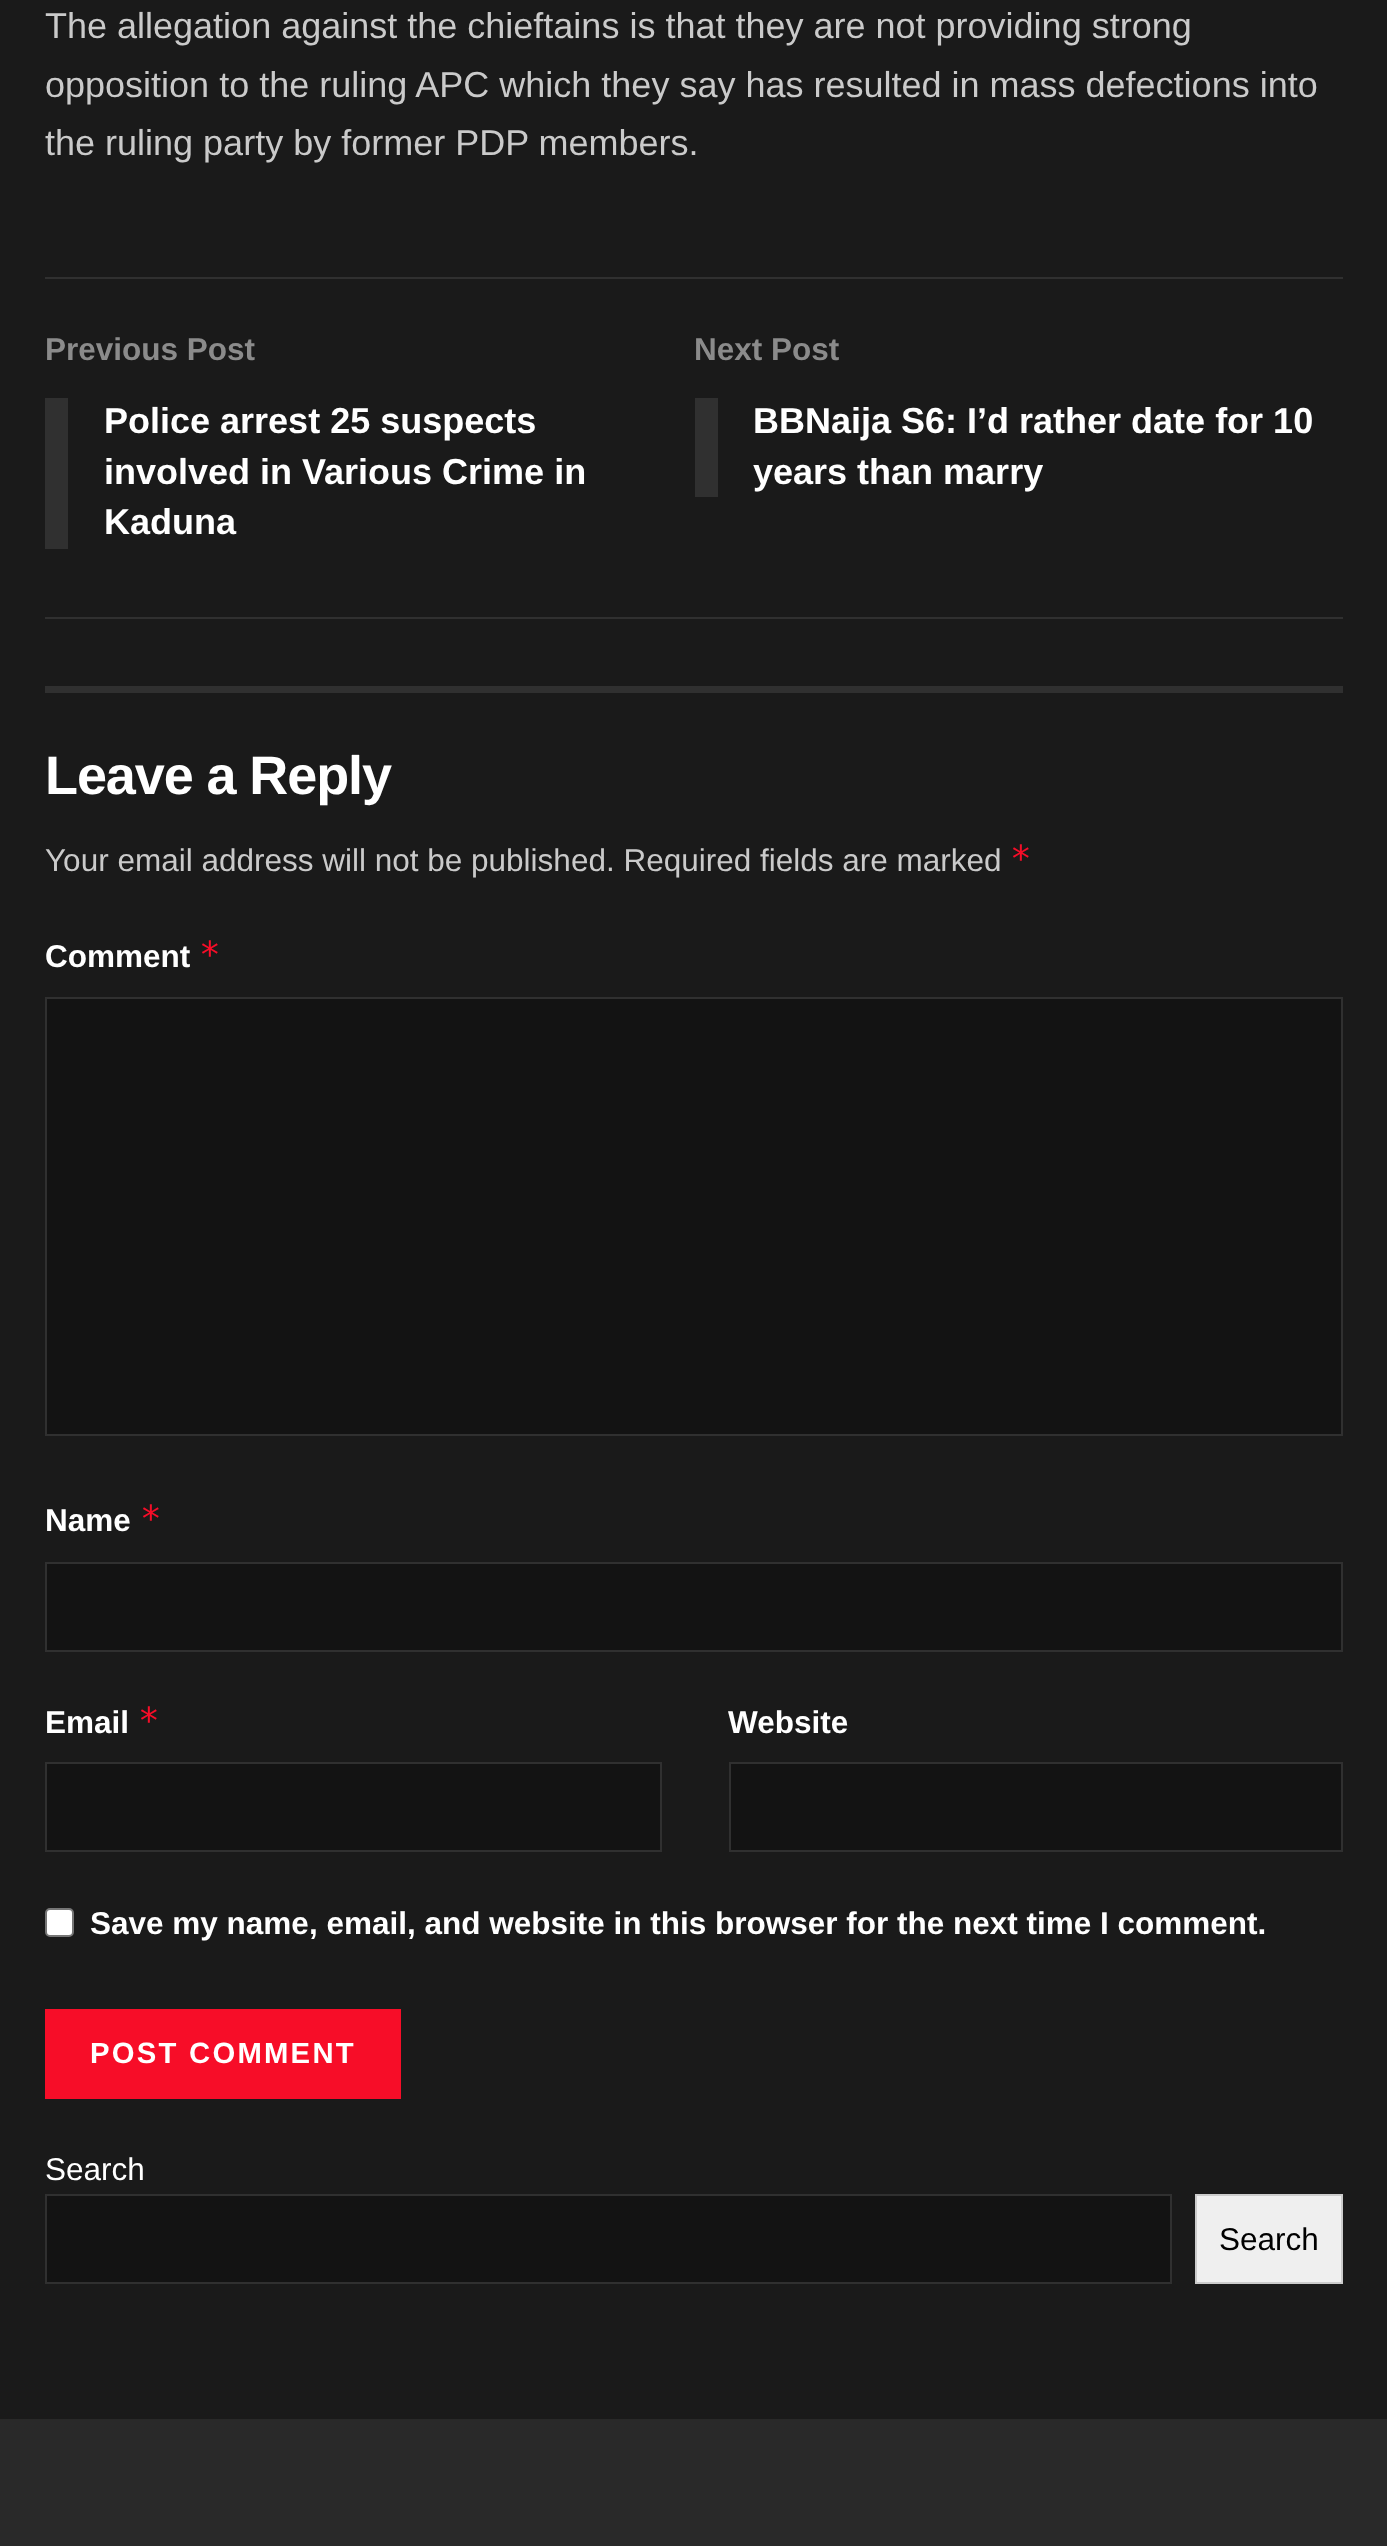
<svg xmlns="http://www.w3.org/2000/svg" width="1387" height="2546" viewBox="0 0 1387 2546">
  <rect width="100%" height="100%" fill="rgb(26,26,26)"/>
  <g font-family="Liberation Sans" font-size="36" fill="rgb(202,202,202)">
    <text>
      <tspan x="45" y="38">The allegation against the chieftains is that they are not providing strong</tspan>
      <tspan x="45" y="97">opposition to the ruling APC which they say has resulted in mass defections into</tspan>
      <tspan x="45" y="155">the ruling party by former PDP members.</tspan>
    </text>
  </g>
  <rect x="45" y="277" width="1298" height="2" fill="rgb(48,48,48)"/>
  <rect x="45" y="617" width="1298" height="2" fill="rgb(48,48,48)"/>
  <text x="45" y="360" font-family="Liberation Sans" font-size="31.5" font-weight="bold" fill="rgb(139,139,139)">Previous Post</text>
  <rect x="45" y="398" width="23" height="151" fill="rgb(48,48,48)"/>
  <g font-family="Liberation Sans" font-size="36" font-weight="bold" fill="rgb(255,255,255)">
    <text>
      <tspan x="104" y="433">Police arrest 25 suspects</tspan>
      <tspan x="104" y="484">involved in Various Crime in</tspan>
      <tspan x="104" y="534">Kaduna</tspan>
    </text>
  </g>
  <text x="694" y="360" font-family="Liberation Sans" font-size="31.5" font-weight="bold" fill="rgb(139,139,139)">Next Post</text>
  <rect x="695" y="398" width="23" height="99" fill="rgb(48,48,48)"/>
  <g font-family="Liberation Sans" font-size="36" font-weight="bold" fill="rgb(255,255,255)">
    <text>
      <tspan x="753" y="433">BBNaija S6: I’d rather date for 10</tspan>
      <tspan x="753" y="484">years than marry</tspan>
    </text>
  </g>
  <rect x="45" y="686" width="1298" height="7" fill="rgb(48,48,48)"/>
  <text x="45" y="794" font-family="Liberation Sans" font-size="54" font-weight="bold" letter-spacing="-1.1" fill="rgb(255,255,255)">Leave a Reply</text>
  <text x="45" y="871" font-family="Liberation Sans" font-size="31.5" fill="rgb(202,202,202)">Your email address will not be published. Required fields are marked</text>
  <text x="1010" y="871" font-family="DejaVu Sans Mono" font-size="36" fill="rgb(247,13,40)">*</text>
  <text x="45" y="967" font-family="Liberation Sans" font-size="31.5" font-weight="bold" fill="rgb(255,255,255)">Comment</text>
  <text x="199" y="967" font-family="DejaVu Sans Mono" font-size="36" fill="rgb(247,13,40)">*</text>
  <rect x="46" y="998" width="1296" height="437" fill="rgb(19,19,19)" stroke="rgb(48,48,48)" stroke-width="2"/>
  <text x="45" y="1531" font-family="Liberation Sans" font-size="31.5" font-weight="bold" fill="rgb(255,255,255)">Name</text>
  <text x="140" y="1531" font-family="DejaVu Sans Mono" font-size="36" fill="rgb(247,13,40)">*</text>
  <rect x="46" y="1563" width="1296" height="88" fill="rgb(19,19,19)" stroke="rgb(48,48,48)" stroke-width="2"/>
  <text x="45" y="1733" font-family="Liberation Sans" font-size="31.5" font-weight="bold" fill="rgb(255,255,255)">Email</text>
  <text x="138" y="1733" font-family="DejaVu Sans Mono" font-size="36" fill="rgb(247,13,40)">*</text>
  <rect x="46" y="1763" width="615" height="88" fill="rgb(19,19,19)" stroke="rgb(48,48,48)" stroke-width="2"/>
  <text x="728" y="1733" font-family="Liberation Sans" font-size="31.5" font-weight="bold" fill="rgb(255,255,255)">Website</text>
  <rect x="730" y="1763" width="612" height="88" fill="rgb(19,19,19)" stroke="rgb(48,48,48)" stroke-width="2"/>
  <rect x="46" y="1909" width="27" height="27" rx="4" fill="rgb(255,255,255)" stroke="rgb(118,118,118)" stroke-width="2"/>
  <text x="90" y="1934" font-family="Liberation Sans" font-size="31.5" font-weight="bold" fill="rgb(255,255,255)">Save my name, email, and website in this browser for the next time I comment.</text>
  <rect x="45" y="2009" width="356" height="90" fill="rgb(247,13,40)"/>
  <text x="90" y="2063" font-family="Liberation Sans" font-size="29.25" font-weight="bold" letter-spacing="2.25" fill="rgb(255,255,255)">POST COMMENT</text>
  <text x="45" y="2180" font-family="Liberation Sans" font-size="31.5" fill="rgb(255,255,255)">Search</text>
  <rect x="46" y="2195" width="1125" height="88" fill="rgb(19,19,19)" stroke="rgb(48,48,48)" stroke-width="2"/>
  <rect x="1196" y="2195" width="146" height="88" fill="rgb(239,239,239)" stroke="rgb(204,204,204)" stroke-width="2"/>
  <text x="1219" y="2250" font-family="Liberation Sans" font-size="31.5" fill="rgb(0,0,0)">Search</text>
  <rect x="0" y="2419" width="1387" height="127" fill="rgb(41,41,41)"/>
</svg>
